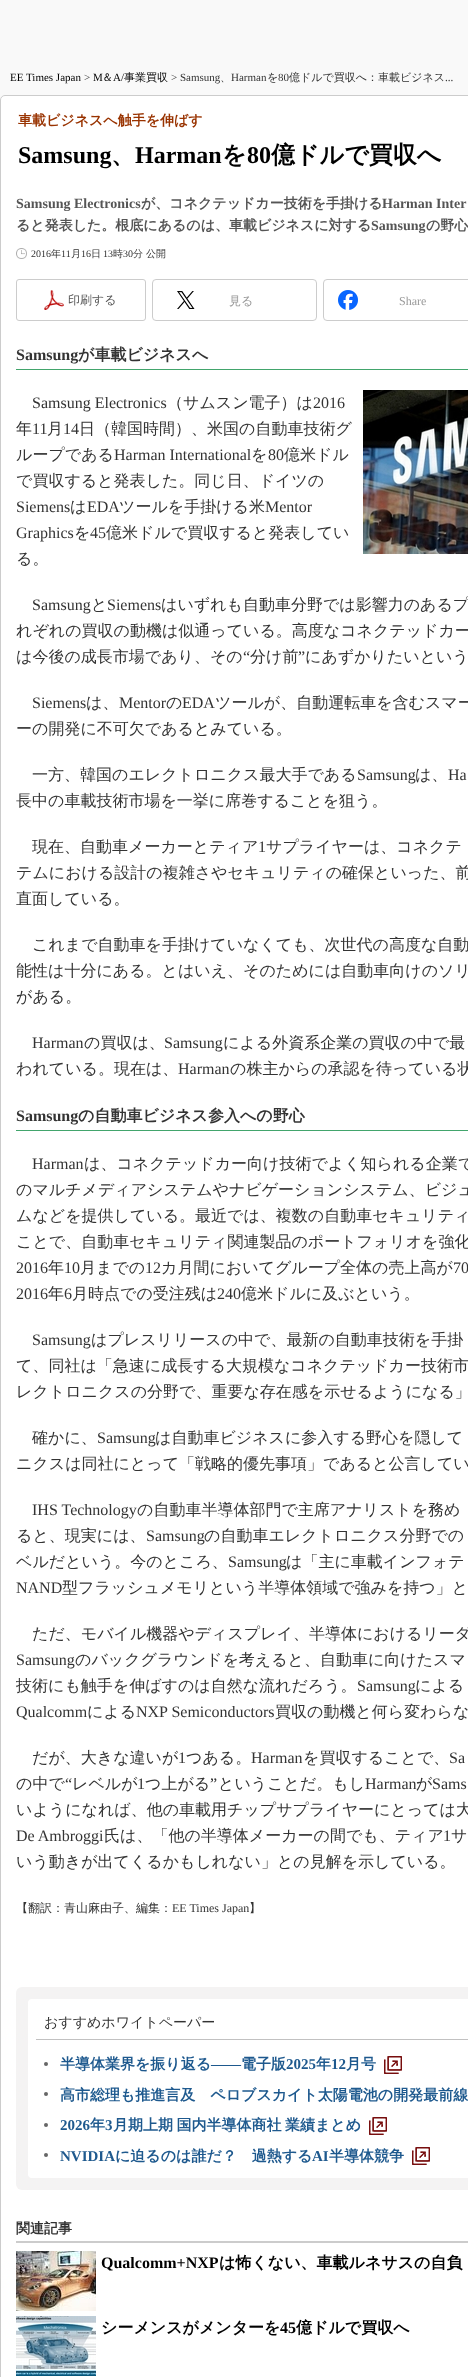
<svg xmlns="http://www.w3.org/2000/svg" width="468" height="2377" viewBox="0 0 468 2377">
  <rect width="100%" height="100%" fill="rgb(249,249,249)"/>
  <text x="10" y="81" font-family="Liberation Serif" font-size="11" fill="rgb(0,0,0)">EE Times Japan</text>
  <text x="84" y="81" font-family="Liberation Serif" font-size="11" fill="rgb(51,51,51)">&gt;</text>
  <text x="93" y="81" font-family="Liberation Serif" font-size="11" fill="rgb(0,0,0)">M</text>
  <text x="102" y="81" font-family="WenQuanYi Zen Hei" font-size="11" font-weight="500" fill="rgb(0,0,0)">＆</text>
  <text x="113" y="81" font-family="Liberation Serif" font-size="11" fill="rgb(0,0,0)">A/</text>
  <text x="124" y="81" font-family="WenQuanYi Zen Hei" font-size="11" font-weight="500" fill="rgb(0,0,0)">事業買収</text>
  <g font-family="Liberation Serif" font-size="11" fill="rgb(51,51,51)">
    <text x="171" y="81">&gt; Samsung</text>
    <text x="231" y="81">Harman</text>
  </g>
  <text x="267" y="81" font-family="WenQuanYi Zen Hei" font-size="11" font-weight="500" fill="rgb(51,51,51)">を</text>
  <text x="278" y="81" font-family="Liberation Serif" font-size="11" fill="rgb(51,51,51)">80</text>
  <g font-family="WenQuanYi Zen Hei" font-size="11" font-weight="500" fill="rgb(51,51,51)">
    <text x="289" y="81">億ドルで買収へ：車載ビジネス</text>
    <text x="220" y="81">、</text>
  </g>
  <text x="445" y="81" font-family="Liberation Serif" font-size="11" fill="rgb(51,51,51)">...</text>
  <rect x="0.5" y="95.5" width="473" height="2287" rx="4.5" fill="rgb(255,255,255)" stroke="rgb(204,204,204)"/>
  <text x="18" y="125" font-family="WenQuanYi Zen Hei" font-size="14" font-weight="bold" fill="rgb(153,51,0)">車載ビジネスへ触手を伸ばす</text>
  <text x="18" y="163" font-family="Liberation Serif" font-size="24" font-weight="bold" fill="rgb(0,0,0)">Samsung</text>
  <text x="111" y="163" font-family="WenQuanYi Zen Hei" font-size="24" font-weight="bold" fill="rgb(0,0,0)">、</text>
  <text x="135" y="163" font-family="Liberation Serif" font-size="24" font-weight="bold" fill="rgb(0,0,0)">Harman</text>
  <text x="222" y="163" font-family="WenQuanYi Zen Hei" font-size="24" font-weight="bold" fill="rgb(0,0,0)">を</text>
  <text x="247" y="163" font-family="Liberation Serif" font-size="24" font-weight="bold" fill="rgb(0,0,0)">80</text>
  <text x="271" y="163" font-family="WenQuanYi Zen Hei" font-size="24" font-weight="bold" fill="rgb(0,0,0)">億ドルで買収へ</text>
  <text x="16" y="208" font-family="Liberation Serif" font-size="14" font-weight="bold" fill="rgb(85,85,85)">Samsung Electronics</text>
  <text x="141" y="208" font-family="WenQuanYi Zen Hei" font-size="14" font-weight="bold" fill="rgb(85,85,85)">が、コネクテッドカー技術を手掛ける</text>
  <text x="382" y="208" font-family="Liberation Serif" font-size="14" font-weight="bold" fill="rgb(85,85,85)">Harman Inter</text>
  <text x="16" y="230" font-family="WenQuanYi Zen Hei" font-size="14" font-weight="bold" fill="rgb(85,85,85)">ると発表した。根底にあるのは、車載ビジネスに対する</text>
  <text x="371" y="230" font-family="Liberation Serif" font-size="14" font-weight="bold" fill="rgb(85,85,85)">Samsung</text>
  <text x="426" y="230" font-family="WenQuanYi Zen Hei" font-size="14" font-weight="bold" fill="rgb(85,85,85)">の野心</text>
  <image x="16" y="248" width="11" height="11" href="pic1.png"/>
  <text x="31" y="257" font-family="Liberation Serif" font-size="10" fill="rgb(51,51,51)">2016</text>
  <text x="51" y="257" font-family="WenQuanYi Zen Hei" font-size="10" font-weight="500" fill="rgb(51,51,51)">年</text>
  <text x="61" y="257" font-family="Liberation Serif" font-size="10" fill="rgb(51,51,51)">11</text>
  <text x="71" y="257" font-family="WenQuanYi Zen Hei" font-size="10" font-weight="500" fill="rgb(51,51,51)">月</text>
  <text x="81" y="257" font-family="Liberation Serif" font-size="10" fill="rgb(51,51,51)">16</text>
  <text x="91" y="257" font-family="WenQuanYi Zen Hei" font-size="10" font-weight="500" fill="rgb(51,51,51)">日</text>
  <text x="103" y="257" font-family="Liberation Serif" font-size="10" fill="rgb(51,51,51)">13</text>
  <text x="113" y="257" font-family="WenQuanYi Zen Hei" font-size="10" font-weight="500" fill="rgb(51,51,51)">時</text>
  <text x="123" y="257" font-family="Liberation Serif" font-size="10" fill="rgb(51,51,51)">30</text>
  <text x="133" y="257" font-family="WenQuanYi Zen Hei" font-size="10" font-weight="500" fill="rgb(51,51,51)">分 公開</text>
  <image x="44" y="290" width="20" height="20" href="pic2.png"/>
  <rect x="16.5" y="279.5" width="129" height="41" rx="2.5" fill="none" stroke="rgb(204,204,204)"/>
  <text x="68" y="304" font-family="WenQuanYi Zen Hei" font-size="12" font-weight="500" fill="rgb(85,85,85)">印刷する</text>
  <image x="177" y="291" width="18" height="18" href="pic3.png"/>
  <rect x="152.5" y="279.5" width="164" height="41" rx="3.5" fill="none" stroke="rgb(204,204,204)"/>
  <text x="229" y="305" font-family="WenQuanYi Zen Hei" font-size="12" font-weight="500" fill="rgb(153,153,153)">見る</text>
  <image x="338" y="290" width="20" height="20" href="pic4.png"/>
  <rect x="323.5" y="279.5" width="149" height="41" rx="3.5" fill="none" stroke="rgb(204,204,204)"/>
  <text x="399" y="305" font-family="Liberation Serif" font-size="12" fill="rgb(153,153,153)">Share</text>
  <rect x="16" y="369" width="452" height="1" fill="rgb(66,165,108)"/>
  <text x="16" y="360" font-family="Liberation Serif" font-size="16" font-weight="bold" fill="rgb(51,51,51)">Samsung</text>
  <text x="78" y="360" font-family="WenQuanYi Zen Hei" font-size="16" font-weight="bold" fill="rgb(51,51,51)">が車載ビジネスへ</text>
  <text x="32" y="408" font-family="Liberation Serif" font-size="16" fill="rgb(51,51,51)">Samsung Electronics</text>
  <text x="167" y="408" font-family="WenQuanYi Zen Hei" font-size="16" font-weight="500" fill="rgb(51,51,51)">（サムスン電子）は</text>
  <text x="313" y="408" font-family="Liberation Serif" font-size="16" fill="rgb(51,51,51)">2016</text>
  <text x="16" y="434" font-family="WenQuanYi Zen Hei" font-size="16" font-weight="500" fill="rgb(51,51,51)">年</text>
  <text x="32" y="434" font-family="Liberation Serif" font-size="16" fill="rgb(51,51,51)">11</text>
  <text x="47" y="434" font-family="WenQuanYi Zen Hei" font-size="16" font-weight="500" fill="rgb(51,51,51)">月</text>
  <text x="63" y="434" font-family="Liberation Serif" font-size="16" fill="rgb(51,51,51)">14</text>
  <g font-family="WenQuanYi Zen Hei" font-size="16" font-weight="500" fill="rgb(51,51,51)">
    <text x="79" y="434">日（韓国時間）、米国の自動車技術グ</text>
    <text x="16" y="460">ループである</text>
  </g>
  <text x="114" y="460" font-family="Liberation Serif" font-size="16" fill="rgb(51,51,51)">Harman International</text>
  <text x="251" y="460" font-family="WenQuanYi Zen Hei" font-size="16" font-weight="500" fill="rgb(51,51,51)">を</text>
  <text x="268" y="460" font-family="Liberation Serif" font-size="16" fill="rgb(51,51,51)">80</text>
  <g font-family="WenQuanYi Zen Hei" font-size="16" font-weight="500" fill="rgb(51,51,51)">
    <text x="284" y="460">億米ドル</text>
    <text x="16" y="486">で買収すると発表した。同じ日、ドイツの</text>
  </g>
  <text x="16" y="512" font-family="Liberation Serif" font-size="16" fill="rgb(51,51,51)">Siemens</text>
  <text x="70" y="512" font-family="WenQuanYi Zen Hei" font-size="16" font-weight="500" fill="rgb(51,51,51)">は</text>
  <text x="87" y="512" font-family="Liberation Serif" font-size="16" fill="rgb(51,51,51)">EDA</text>
  <text x="119" y="512" font-family="WenQuanYi Zen Hei" font-size="16" font-weight="500" fill="rgb(51,51,51)">ツールを手掛ける米</text>
  <g font-family="Liberation Serif" font-size="16" fill="rgb(51,51,51)">
    <text x="265" y="512">Mentor</text>
    <text x="16" y="538">Graphics</text>
  </g>
  <text x="74" y="538" font-family="WenQuanYi Zen Hei" font-size="16" font-weight="500" fill="rgb(51,51,51)">を</text>
  <text x="90" y="538" font-family="Liberation Serif" font-size="16" fill="rgb(51,51,51)">45</text>
  <g font-family="WenQuanYi Zen Hei" font-size="16" font-weight="500" fill="rgb(51,51,51)">
    <text x="106" y="538">億米ドルで買収すると発表してい</text>
    <text x="16" y="564">る。</text>
  </g>
  <image x="363" y="390" width="105" height="164" href="pic5.png"/>
  <text x="32" y="610" font-family="Liberation Serif" font-size="16" fill="rgb(51,51,51)">Samsung</text>
  <text x="91" y="610" font-family="WenQuanYi Zen Hei" font-size="16" font-weight="500" fill="rgb(51,51,51)">と</text>
  <text x="107" y="610" font-family="Liberation Serif" font-size="16" fill="rgb(51,51,51)">Siemens</text>
  <g font-family="WenQuanYi Zen Hei" font-size="16" font-weight="500" fill="rgb(51,51,51)">
    <text x="161" y="610">はいずれも自動車分野では影響力のあるプ</text>
    <text>
      <tspan x="16" y="636">れぞれの買収の動機は似通っている。高度なコネクテッドカー</tspan>
      <tspan x="16" y="662">は今後の成長市場であり、その</tspan>
    </text>
  </g>
  <text x="243" y="662" font-family="Liberation Serif" font-size="16" fill="rgb(51,51,51)">“</text>
  <text x="250" y="662" font-family="WenQuanYi Zen Hei" font-size="16" font-weight="500" fill="rgb(51,51,51)">分け前</text>
  <text x="298" y="662" font-family="Liberation Serif" font-size="16" fill="rgb(51,51,51)">”</text>
  <text x="305" y="662" font-family="WenQuanYi Zen Hei" font-size="16" font-weight="500" fill="rgb(51,51,51)">にあずかりたいという</text>
  <text x="32" y="708" font-family="Liberation Serif" font-size="16" fill="rgb(51,51,51)">Siemens</text>
  <text x="86" y="708" font-family="WenQuanYi Zen Hei" font-size="16" font-weight="500" fill="rgb(51,51,51)">は、</text>
  <text x="119" y="708" font-family="Liberation Serif" font-size="16" fill="rgb(51,51,51)">Mentor</text>
  <text x="166" y="708" font-family="WenQuanYi Zen Hei" font-size="16" font-weight="500" fill="rgb(51,51,51)">の</text>
  <text x="182" y="708" font-family="Liberation Serif" font-size="16" fill="rgb(51,51,51)">EDA</text>
  <g font-family="WenQuanYi Zen Hei" font-size="16" font-weight="500" fill="rgb(51,51,51)">
    <text x="215" y="708">ツールが、自動運転車を含むスマー</text>
    <text x="16" y="734">ーの開発に不可欠であるとみている。</text>
    <text x="32" y="780">一方、韓国のエレクトロニクス最大手である</text>
  </g>
  <text x="357" y="780" font-family="Liberation Serif" font-size="16" fill="rgb(51,51,51)">Samsung</text>
  <text x="415" y="780" font-family="WenQuanYi Zen Hei" font-size="16" font-weight="500" fill="rgb(51,51,51)">は、</text>
  <text x="448" y="780" font-family="Liberation Serif" font-size="16" fill="rgb(51,51,51)">Ha</text>
  <g font-family="WenQuanYi Zen Hei" font-size="16" font-weight="500" fill="rgb(51,51,51)">
    <text x="16" y="806">長中の車載技術市場を一挙に席巻することを狙う。</text>
    <text x="32" y="852">現在、自動車メーカーとティア</text>
  </g>
  <text x="258" y="852" font-family="Liberation Serif" font-size="16" fill="rgb(51,51,51)">1</text>
  <g font-family="WenQuanYi Zen Hei" font-size="16" font-weight="500" fill="rgb(51,51,51)">
    <text x="266" y="852">サプライヤーは、コネクテ</text>
    <text>
      <tspan x="16" y="878">テムにおける設計の複雑さやセキュリティの確保といった、前</tspan>
      <tspan x="16" y="904">直面している。</tspan>
    </text>
    <text x="32" y="950">これまで自動車を手掛けていなくても、次世代の高度な自動</text>
    <text>
      <tspan x="16" y="976">能性は十分にある。とはいえ、そのためには自動車向けのソリ</tspan>
      <tspan x="16" y="1002">がある。</tspan>
    </text>
  </g>
  <text x="32" y="1048" font-family="Liberation Serif" font-size="16" fill="rgb(51,51,51)">Harman</text>
  <text x="84" y="1048" font-family="WenQuanYi Zen Hei" font-size="16" font-weight="500" fill="rgb(51,51,51)">の買収は、</text>
  <text x="164" y="1048" font-family="Liberation Serif" font-size="16" fill="rgb(51,51,51)">Samsung</text>
  <g font-family="WenQuanYi Zen Hei" font-size="16" font-weight="500" fill="rgb(51,51,51)">
    <text x="223" y="1048">による外資系企業の買収の中で最</text>
    <text x="16" y="1074">われている。現在は、</text>
  </g>
  <text x="178" y="1074" font-family="Liberation Serif" font-size="16" fill="rgb(51,51,51)">Harman</text>
  <text x="230" y="1074" font-family="WenQuanYi Zen Hei" font-size="16" font-weight="500" fill="rgb(51,51,51)">の株主からの承認を待っている状</text>
  <rect x="16" y="1130" width="452" height="1" fill="rgb(66,165,108)"/>
  <text x="16" y="1121" font-family="Liberation Serif" font-size="16" font-weight="bold" fill="rgb(51,51,51)">Samsung</text>
  <text x="78" y="1121" font-family="WenQuanYi Zen Hei" font-size="16" font-weight="bold" fill="rgb(51,51,51)">の自動車ビジネス参入への野心</text>
  <text x="32" y="1169" font-family="Liberation Serif" font-size="16" fill="rgb(51,51,51)">Harman</text>
  <g font-family="WenQuanYi Zen Hei" font-size="16" font-weight="500" fill="rgb(51,51,51)">
    <text x="84" y="1169">は、コネクテッドカー向け技術でよく知られる企業で</text>
    <text>
      <tspan x="16" y="1195">のマルチメディアシステムやナビゲーションシステム、ビジュ</tspan>
      <tspan x="16" y="1221">ムなどを提供している。最近では、複数の自動車セキュリティ</tspan>
      <tspan x="16" y="1247">ことで、自動車セキュリティ関連製品のポートフォリオを強化</tspan>
    </text>
  </g>
  <text x="16" y="1273" font-family="Liberation Serif" font-size="16" fill="rgb(51,51,51)">2016</text>
  <text x="48" y="1273" font-family="WenQuanYi Zen Hei" font-size="16" font-weight="500" fill="rgb(51,51,51)">年</text>
  <text x="64" y="1273" font-family="Liberation Serif" font-size="16" fill="rgb(51,51,51)">10</text>
  <text x="80" y="1273" font-family="WenQuanYi Zen Hei" font-size="16" font-weight="500" fill="rgb(51,51,51)">月までの</text>
  <text x="145" y="1273" font-family="Liberation Serif" font-size="16" fill="rgb(51,51,51)">12</text>
  <text x="161" y="1273" font-family="WenQuanYi Zen Hei" font-size="16" font-weight="500" fill="rgb(51,51,51)">カ月間においてグループ全体の売上高が</text>
  <g font-family="Liberation Serif" font-size="16" fill="rgb(51,51,51)">
    <text x="453" y="1273">70</text>
    <text x="16" y="1299">2016</text>
  </g>
  <text x="48" y="1299" font-family="WenQuanYi Zen Hei" font-size="16" font-weight="500" fill="rgb(51,51,51)">年</text>
  <text x="64" y="1299" font-family="Liberation Serif" font-size="16" fill="rgb(51,51,51)">6</text>
  <text x="72" y="1299" font-family="WenQuanYi Zen Hei" font-size="16" font-weight="500" fill="rgb(51,51,51)">月時点での受注残は</text>
  <text x="217" y="1299" font-family="Liberation Serif" font-size="16" fill="rgb(51,51,51)">240</text>
  <text x="241" y="1299" font-family="WenQuanYi Zen Hei" font-size="16" font-weight="500" fill="rgb(51,51,51)">億米ドルに及ぶという。</text>
  <text x="32" y="1345" font-family="Liberation Serif" font-size="16" fill="rgb(51,51,51)">Samsung</text>
  <g font-family="WenQuanYi Zen Hei" font-size="16" font-weight="500" fill="rgb(51,51,51)">
    <text x="91" y="1345">はプレスリリースの中で、最新の自動車技術を手掛</text>
    <text>
      <tspan x="16" y="1371">て、同社は「急速に成長する大規模なコネクテッドカー技術市</tspan>
      <tspan x="16" y="1397">レクトロニクスの分野で、重要な存在感を示せるようになる」</tspan>
    </text>
    <text x="32" y="1443">確かに、</text>
  </g>
  <text x="97" y="1443" font-family="Liberation Serif" font-size="16" fill="rgb(51,51,51)">Samsung</text>
  <g font-family="WenQuanYi Zen Hei" font-size="16" font-weight="500" fill="rgb(51,51,51)">
    <text x="155" y="1443">は自動車ビジネスに参入する野心を隠して</text>
    <text x="16" y="1469">ニクスは同社にとって「戦略的優先事項」であると公言してい</text>
  </g>
  <text x="32" y="1515" font-family="Liberation Serif" font-size="16" fill="rgb(51,51,51)">IHS Technology</text>
  <g font-family="WenQuanYi Zen Hei" font-size="16" font-weight="500" fill="rgb(51,51,51)">
    <text x="137" y="1515">の自動車半導体部門で主席アナリストを務め</text>
    <text x="16" y="1541">ると、現実には、</text>
  </g>
  <text x="146" y="1541" font-family="Liberation Serif" font-size="16" fill="rgb(51,51,51)">Samsung</text>
  <g font-family="WenQuanYi Zen Hei" font-size="16" font-weight="500" fill="rgb(51,51,51)">
    <text x="204" y="1541">の自動車エレクトロニクス分野での</text>
    <text x="16" y="1567">ベルだという。今のところ、</text>
  </g>
  <text x="228" y="1567" font-family="Liberation Serif" font-size="16" fill="rgb(51,51,51)">Samsung</text>
  <text x="286" y="1567" font-family="WenQuanYi Zen Hei" font-size="16" font-weight="500" fill="rgb(51,51,51)">は「主に車載インフォテ</text>
  <text x="16" y="1593" font-family="Liberation Serif" font-size="16" fill="rgb(51,51,51)">NAND</text>
  <g font-family="WenQuanYi Zen Hei" font-size="16" font-weight="500" fill="rgb(51,51,51)">
    <text x="62" y="1593">型フラッシュメモリという半導体領域で強みを持つ」と</text>
    <text x="32" y="1639">ただ、モバイル機器やディスプレイ、半導体におけるリーダ</text>
  </g>
  <text x="16" y="1665" font-family="Liberation Serif" font-size="16" fill="rgb(51,51,51)">Samsung</text>
  <g font-family="WenQuanYi Zen Hei" font-size="16" font-weight="500" fill="rgb(51,51,51)">
    <text x="75" y="1665">のバックグラウンドを考えると、自動車に向けたスマ</text>
    <text x="16" y="1691">技術にも触手を伸ばすのは自然な流れだろう。</text>
  </g>
  <text x="357" y="1691" font-family="Liberation Serif" font-size="16" fill="rgb(51,51,51)">Samsung</text>
  <text x="415" y="1691" font-family="WenQuanYi Zen Hei" font-size="16" font-weight="500" fill="rgb(51,51,51)">による</text>
  <text x="16" y="1717" font-family="Liberation Serif" font-size="16" fill="rgb(51,51,51)">Qualcomm</text>
  <text x="87" y="1717" font-family="WenQuanYi Zen Hei" font-size="16" font-weight="500" fill="rgb(51,51,51)">による</text>
  <text x="136" y="1717" font-family="Liberation Serif" font-size="16" fill="rgb(51,51,51)">NXP Semiconductors</text>
  <g font-family="WenQuanYi Zen Hei" font-size="16" font-weight="500" fill="rgb(51,51,51)">
    <text x="275" y="1717">買収の動機と何ら変わらな</text>
    <text x="32" y="1763">だが、大きな違いが</text>
  </g>
  <text x="178" y="1763" font-family="Liberation Serif" font-size="16" fill="rgb(51,51,51)">1</text>
  <text x="186" y="1763" font-family="WenQuanYi Zen Hei" font-size="16" font-weight="500" fill="rgb(51,51,51)">つある。</text>
  <text x="251" y="1763" font-family="Liberation Serif" font-size="16" fill="rgb(51,51,51)">Harman</text>
  <text x="303" y="1763" font-family="WenQuanYi Zen Hei" font-size="16" font-weight="500" fill="rgb(51,51,51)">を買収することで、</text>
  <text x="449" y="1763" font-family="Liberation Serif" font-size="16" fill="rgb(51,51,51)">Sa</text>
  <text x="16" y="1789" font-family="WenQuanYi Zen Hei" font-size="16" font-weight="500" fill="rgb(51,51,51)">の中で</text>
  <text x="65" y="1789" font-family="Liberation Serif" font-size="16" fill="rgb(51,51,51)">“</text>
  <text x="72" y="1789" font-family="WenQuanYi Zen Hei" font-size="16" font-weight="500" fill="rgb(51,51,51)">レベルが</text>
  <text x="137" y="1789" font-family="Liberation Serif" font-size="16" fill="rgb(51,51,51)">1</text>
  <text x="145" y="1789" font-family="WenQuanYi Zen Hei" font-size="16" font-weight="500" fill="rgb(51,51,51)">つ上がる</text>
  <text x="210" y="1789" font-family="Liberation Serif" font-size="16" fill="rgb(51,51,51)">”</text>
  <text x="218" y="1789" font-family="WenQuanYi Zen Hei" font-size="16" font-weight="500" fill="rgb(51,51,51)">ということだ。もし</text>
  <text x="365" y="1789" font-family="Liberation Serif" font-size="16" fill="rgb(51,51,51)">Harman</text>
  <text x="416" y="1789" font-family="WenQuanYi Zen Hei" font-size="16" font-weight="500" fill="rgb(51,51,51)">が</text>
  <text x="432" y="1789" font-family="Liberation Serif" font-size="16" fill="rgb(51,51,51)">Sams</text>
  <text x="16" y="1815" font-family="WenQuanYi Zen Hei" font-size="16" font-weight="500" fill="rgb(51,51,51)">いようになれば、他の車載用チップサプライヤーにとっては大</text>
  <text x="16" y="1841" font-family="Liberation Serif" font-size="16" fill="rgb(51,51,51)">De Ambroggi</text>
  <text x="104" y="1841" font-family="WenQuanYi Zen Hei" font-size="16" font-weight="500" fill="rgb(51,51,51)">氏は、「他の半導体メーカーの間でも、ティア</text>
  <text x="443" y="1841" font-family="Liberation Serif" font-size="16" fill="rgb(51,51,51)">1</text>
  <g font-family="WenQuanYi Zen Hei" font-size="16" font-weight="500" fill="rgb(51,51,51)">
    <text x="451" y="1841">サ</text>
    <text x="16" y="1867">いう動きが出てくるかもしれない」との見解を示している。</text>
  </g>
  <text x="16" y="1912" font-family="WenQuanYi Zen Hei" font-size="12" font-weight="500" fill="rgb(51,51,51)">【翻訳：青山麻由子、編集：</text>
  <text x="172" y="1912" font-family="Liberation Serif" font-size="12" fill="rgb(51,51,51)">EE Times Japan</text>
  <text x="249" y="1912" font-family="WenQuanYi Zen Hei" font-size="12" font-weight="500" fill="rgb(51,51,51)">】</text>
  <rect x="16" y="1987" width="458" height="203" rx="6" fill="rgb(244,243,243)"/>
  <rect x="22" y="1993" width="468" height="191" rx="10" fill="rgb(255,255,255)" stroke="rgb(244,243,243)" stroke-width="12"/>
  <rect x="36" y="2039" width="432" height="1" fill="rgb(193,193,193)"/>
  <text x="44" y="2027" font-family="WenQuanYi Zen Hei" font-size="14" font-weight="500" fill="rgb(51,51,51)">おすすめホワイトペーパー</text>
  <circle cx="46" cy="2064" r="2" fill="rgb(102,102,102)"/>
  <text x="60" y="2069" font-family="WenQuanYi Zen Hei" font-size="15" font-weight="bold" fill="rgb(30,89,142)">半導体業界を振り返る</text>
  <text x="211" y="2069" font-family="Liberation Serif" font-size="15" font-weight="bold" fill="rgb(30,89,142)">――</text>
  <text x="241" y="2069" font-family="WenQuanYi Zen Hei" font-size="15" font-weight="bold" fill="rgb(30,89,142)">電子版</text>
  <text x="286" y="2069" font-family="Liberation Serif" font-size="15" font-weight="bold" fill="rgb(30,89,142)">2025</text>
  <text x="316" y="2069" font-family="WenQuanYi Zen Hei" font-size="15" font-weight="bold" fill="rgb(30,89,142)">年</text>
  <text x="331" y="2069" font-family="Liberation Serif" font-size="15" font-weight="bold" fill="rgb(30,89,142)">12</text>
  <text x="346" y="2069" font-family="WenQuanYi Zen Hei" font-size="15" font-weight="bold" fill="rgb(30,89,142)">月号</text>
  <image x="384" y="2056" width="18" height="18" href="pic6.png"/>
  <circle cx="46" cy="2094" r="2" fill="rgb(102,102,102)"/>
  <text x="60" y="2100" font-family="WenQuanYi Zen Hei" font-size="15" font-weight="bold" fill="rgb(30,89,142)">高市総理も推進言及　ペロブスカイト太陽電池の開発最前線</text>
  <circle cx="46" cy="2125" r="2" fill="rgb(102,102,102)"/>
  <text x="60" y="2130" font-family="Liberation Serif" font-size="15" font-weight="bold" fill="rgb(30,89,142)">2026</text>
  <text x="90" y="2130" font-family="WenQuanYi Zen Hei" font-size="15" font-weight="bold" fill="rgb(30,89,142)">年</text>
  <text x="105" y="2130" font-family="Liberation Serif" font-size="15" font-weight="bold" fill="rgb(30,89,142)">3</text>
  <text x="113" y="2130" word-spacing="-1" font-family="WenQuanYi Zen Hei" font-size="15" font-weight="bold" fill="rgb(30,89,142)">月期上期 国内半導体商社 業績まとめ</text>
  <image x="369" y="2117" width="18" height="18" href="pic6.png"/>
  <circle cx="46" cy="2155" r="2" fill="rgb(102,102,102)"/>
  <text x="60" y="2161" font-family="Liberation Serif" font-size="15" font-weight="bold" fill="rgb(30,89,142)">NVIDIA</text>
  <text x="115" y="2161" font-family="WenQuanYi Zen Hei" font-size="15" font-weight="bold" fill="rgb(30,89,142)">に迫るのは誰だ？　過熱する</text>
  <text x="312" y="2161" font-family="Liberation Serif" font-size="15" font-weight="bold" fill="rgb(30,89,142)">AI</text>
  <text x="329" y="2161" font-family="WenQuanYi Zen Hei" font-size="15" font-weight="bold" fill="rgb(30,89,142)">半導体競争</text>
  <image x="412" y="2147" width="18" height="18" href="pic6.png"/>
  <rect x="16" y="2241" width="452" height="2" fill="rgb(204,204,204)"/>
  <text x="16" y="2233" font-family="WenQuanYi Zen Hei" font-size="14" font-weight="bold" fill="rgb(51,51,51)">関連記事</text>
  <image x="16" y="2251" width="80" height="60" href="pic7.png"/>
  <text x="101" y="2268" font-family="Liberation Serif" font-size="16" font-weight="bold" fill="rgb(0,0,0)">Qualcomm+NXP</text>
  <text x="219" y="2268" font-family="WenQuanYi Zen Hei" font-size="16" font-weight="bold" fill="rgb(0,0,0)">は怖くない、車載ルネサスの自負</text>
  <image x="16" y="2316" width="80" height="60" href="pic8.png"/>
  <text x="101" y="2333" font-family="WenQuanYi Zen Hei" font-size="16" font-weight="bold" fill="rgb(0,0,0)">シーメンスがメンターを</text>
  <text x="280" y="2333" font-family="Liberation Serif" font-size="16" font-weight="bold" fill="rgb(0,0,0)">45</text>
  <text x="296" y="2333" font-family="WenQuanYi Zen Hei" font-size="16" font-weight="bold" fill="rgb(0,0,0)">億ドルで買収へ</text>
</svg>
